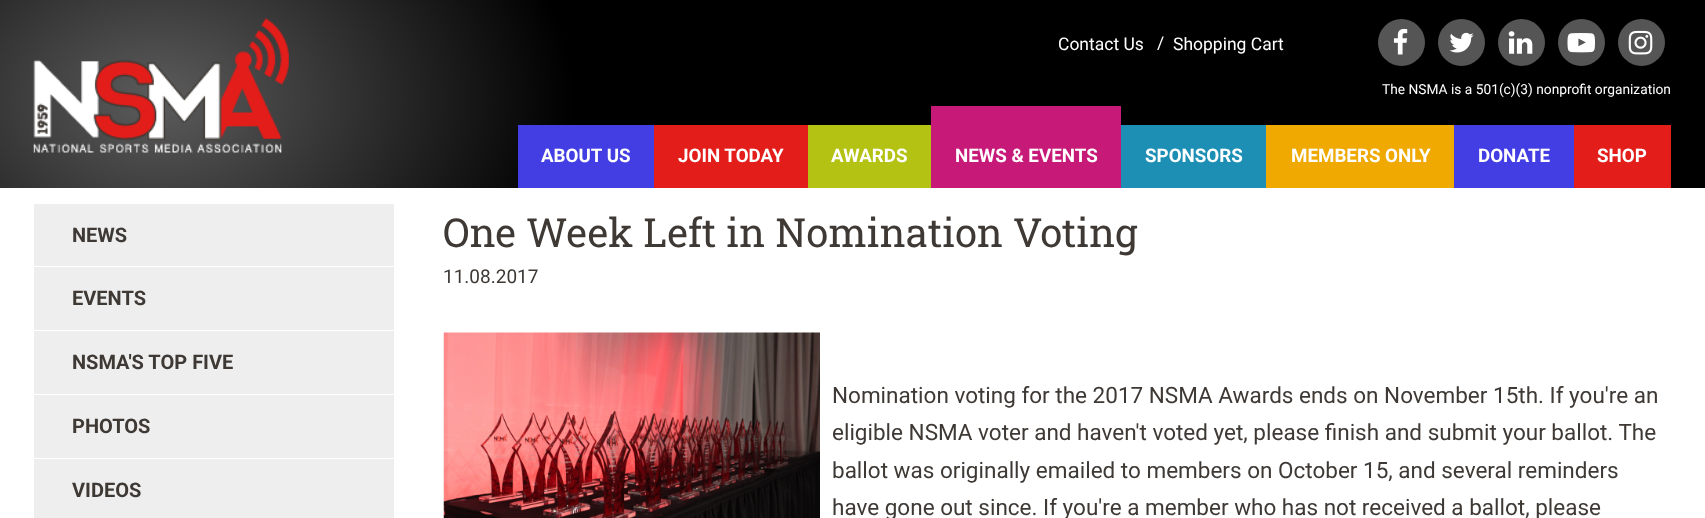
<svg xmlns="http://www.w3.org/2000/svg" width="1705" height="518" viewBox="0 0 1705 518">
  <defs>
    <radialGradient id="g1" gradientUnits="userSpaceOnUse" cx="0" cy="0" r="1" gradientTransform="matrix(619 0 0 442 159 100)"><stop offset="0" stop-color="rgb(92,92,92)"/><stop offset="0.67" stop-color="rgb(0,0,0)"/><stop offset="0.74" stop-color="rgb(0,0,0)"/></radialGradient>
  </defs>
  <rect width="100%" height="100%" fill="rgb(255,255,255)"/>
  <rect x="596" y="0" width="1109" height="188" fill="rgb(0,0,0)"/>
  <rect x="0" y="0" width="596" height="188" fill="url(#g1)"/>
  <image x="33" y="18" width="256" height="135" href="pic1.png"/>
  <g font-family="Roboto" font-size="17.5" fill="rgb(255,255,255)">
    <text x="1058" y="50">Contact Us</text>
    <text x="1157" y="49">/</text>
    <text x="1173" y="50">Shopping Cart</text>
  </g>
  <circle cx="1401.5" cy="42.5" r="23.5" fill="rgb(85,85,85)"/>
  <image x="1393" y="28" width="15" height="27" href="pic2.png"/>
  <circle cx="1461.5" cy="42.5" r="23.5" fill="rgb(85,85,85)"/>
  <image x="1449" y="32" width="25" height="21" href="pic3.png"/>
  <circle cx="1521.5" cy="42.5" r="23.5" fill="rgb(85,85,85)"/>
  <image x="1508" y="31" width="25" height="23" href="pic4.png"/>
  <circle cx="1581.5" cy="42.5" r="23.5" fill="rgb(85,85,85)"/>
  <image x="1567" y="33" width="28" height="20" href="pic5.png"/>
  <circle cx="1641.5" cy="42.5" r="23.5" fill="rgb(85,85,85)"/>
  <image x="1628" y="30" width="25" height="25" href="pic6.png"/>
  <text x="1382" y="94" font-family="Roboto" font-size="13.75" fill="rgb(255,255,255)">The NSMA is a 501(c)(3) nonprofit organization</text>
  <rect x="518" y="125" width="136" height="63" fill="rgb(66,62,227)"/>
  <text x="541" y="162" font-family="Roboto" font-size="18.75" font-weight="bold" fill="rgb(255,255,255)">ABOUT US</text>
  <rect x="654" y="125" width="154" height="63" fill="rgb(227,29,26)"/>
  <text x="678" y="162" font-family="Roboto" font-size="18.75" font-weight="bold" fill="rgb(255,255,255)">JOIN TODAY</text>
  <rect x="808" y="125" width="123" height="63" fill="rgb(180,194,19)"/>
  <text x="831" y="162" font-family="Roboto" font-size="18.75" font-weight="bold" fill="rgb(255,255,255)">AWARDS</text>
  <rect x="931" y="106" width="190" height="82" fill="rgb(199,25,120)"/>
  <text x="955" y="162" font-family="Roboto" font-size="18.75" font-weight="bold" fill="rgb(255,255,255)">NEWS &amp; EVENTS</text>
  <rect x="1121" y="125" width="145" height="63" fill="rgb(29,143,180)"/>
  <text x="1145" y="162" font-family="Roboto" font-size="18.75" font-weight="bold" fill="rgb(255,255,255)">SPONSORS</text>
  <rect x="1266" y="125" width="188" height="63" fill="rgb(239,169,0)"/>
  <text x="1291" y="162" font-family="Roboto" font-size="18.75" font-weight="bold" fill="rgb(255,255,255)">MEMBERS ONLY</text>
  <rect x="1454" y="125" width="120" height="63" fill="rgb(66,62,227)"/>
  <text x="1478" y="162" font-family="Roboto" font-size="18.75" font-weight="bold" fill="rgb(255,255,255)">DONATE</text>
  <rect x="1574" y="125" width="97" height="63" fill="rgb(227,29,26)"/>
  <text x="1597" y="162" font-family="Roboto" font-size="18.75" font-weight="bold" fill="rgb(255,255,255)">SHOP</text>
  <rect x="34" y="204" width="360" height="126" fill="rgb(238,238,238)"/>
  <rect x="34" y="266" width="360" height="1" fill="rgb(255,255,255)"/>
  <g font-family="Roboto" font-size="20" font-weight="bold" fill="rgb(62,57,52)">
    <text x="72" y="242">NEWS</text>
    <text x="72" y="305">EVENTS</text>
  </g>
  <rect x="34" y="331" width="360" height="63" fill="rgb(238,238,238)"/>
  <text x="72" y="369" font-family="Roboto" font-size="20" font-weight="bold" fill="rgb(62,57,52)">NSMA'S TOP FIVE</text>
  <rect x="34" y="395" width="360" height="63" fill="rgb(238,238,238)"/>
  <text x="72" y="433" font-family="Roboto" font-size="20" font-weight="bold" fill="rgb(62,57,52)">PHOTOS</text>
  <rect x="34" y="459" width="360" height="59" fill="rgb(238,238,238)"/>
  <text x="72" y="497" font-family="Roboto" font-size="20" font-weight="bold" fill="rgb(62,57,52)">VIDEOS</text>
  <text x="443" y="247" font-family="Roboto Slab" font-size="40" fill="rgb(62,57,52)">One Week Left in Nomination Voting</text>
  <text x="443" y="283" font-family="Roboto" font-size="19" fill="rgb(62,57,52)">11.08.2017</text>
  <image x="443" y="332" width="377" height="186" href="pic7.png"/>
  <g font-family="Roboto" font-size="22.5" fill="rgb(62,57,52)">
    <text>
      <tspan x="832" y="403">Nomination voting for the 2017 NSMA Awards ends on November 15th. If you're an</tspan>
      <tspan x="832" y="440">eligible NSMA voter and haven't voted yet, please finish and submit your ballot. The</tspan>
      <tspan x="832" y="478">ballot was originally emailed to members on October 15, and several reminders</tspan>
      <tspan x="832" y="515">have gone out since. If you're a member who has not received a ballot, please</tspan>
    </text>
  </g>
</svg>
